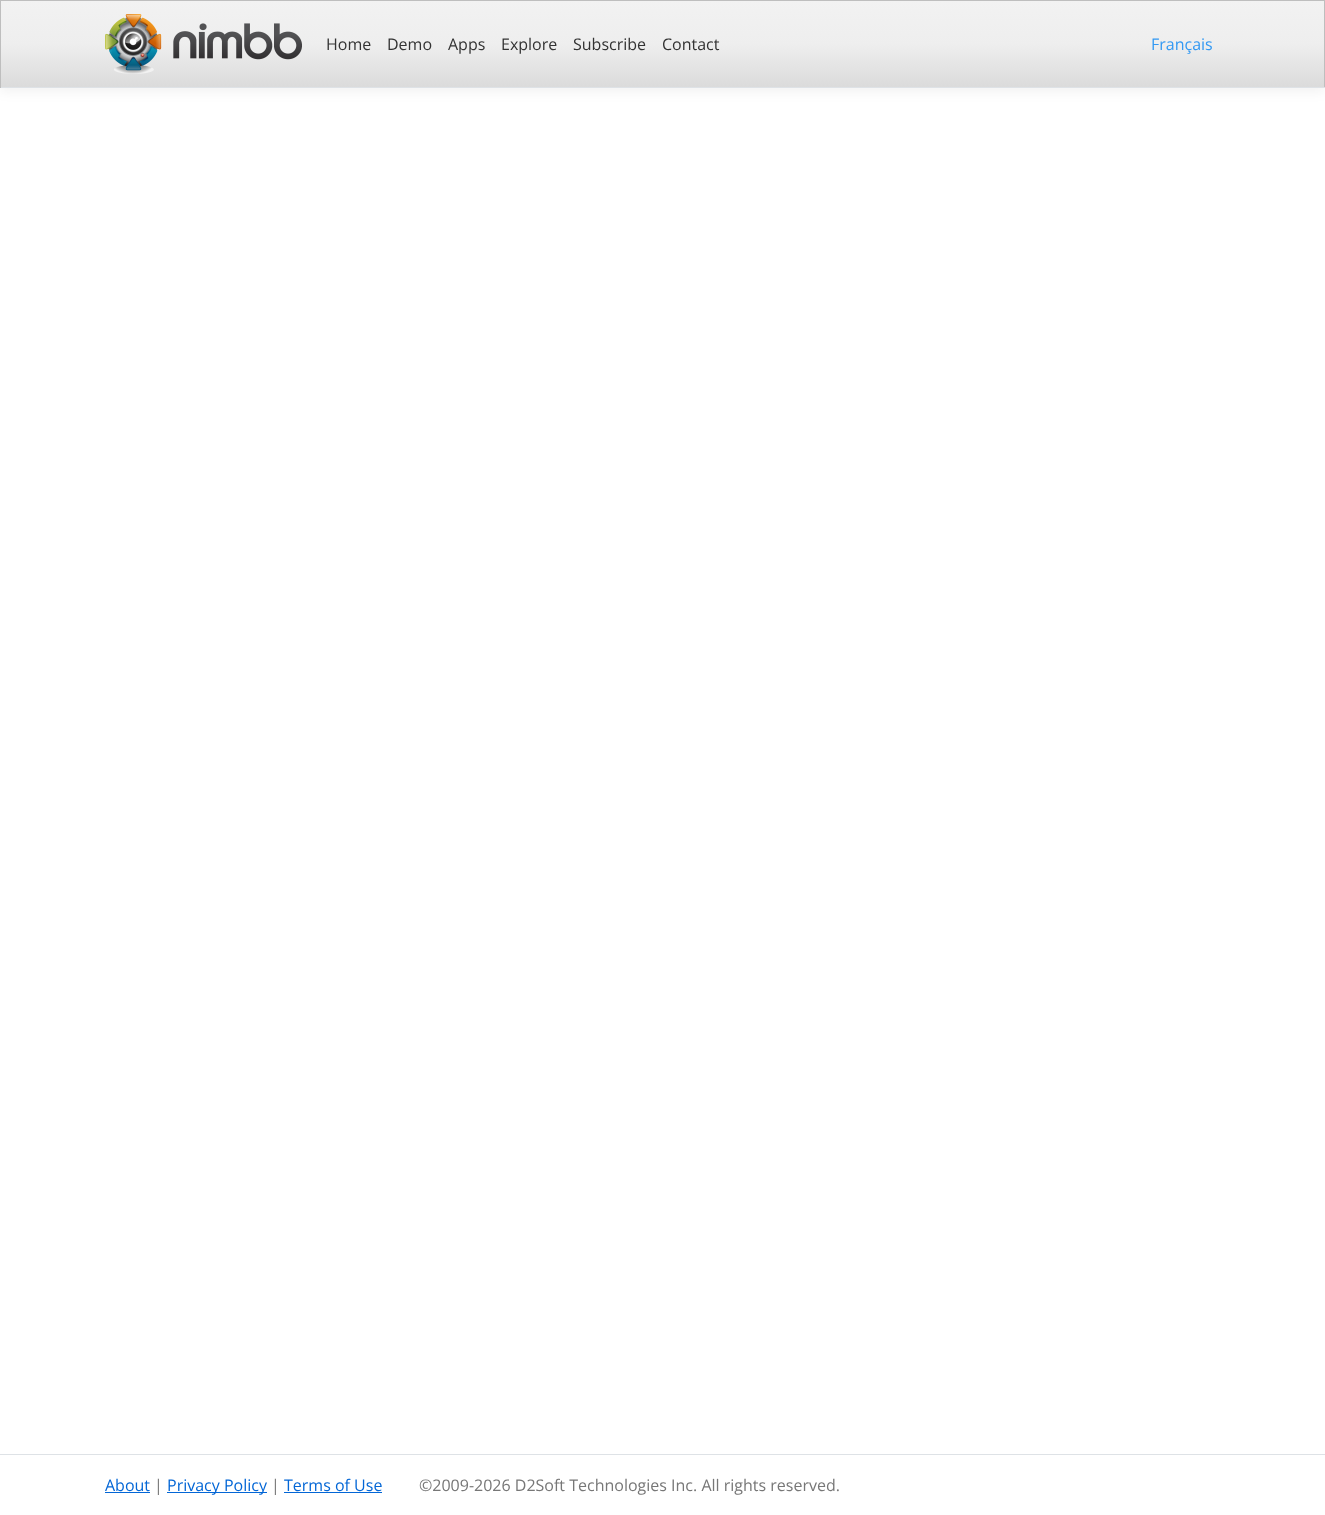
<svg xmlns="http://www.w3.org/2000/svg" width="1325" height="1515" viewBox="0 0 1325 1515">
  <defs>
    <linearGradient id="g1" gradientUnits="userSpaceOnUse" x1="663" y1="1" x2="663" y2="87"><stop offset="0" stop-color="rgb(242,242,242)"/><stop offset="0.5" stop-color="rgb(238,238,238)"/><stop offset="1" stop-color="rgb(219,219,219)"/></linearGradient>
  </defs>
  <rect width="100%" height="100%" fill="rgb(255,255,255)"/>
  <rect x="0" y="4" width="1325" height="88" fill="rgba(0,0,0,0.05)" filter="blur(6px)"/>
  <rect x="1" y="1" width="1323" height="86" fill="url(#g1)"/>
  <rect x="0" y="0" width="1325" height="1" fill="rgb(190,190,190)"/>
  <rect x="1324" y="0" width="1" height="88" fill="rgb(190,190,190)"/>
  <rect x="0" y="87" width="1325" height="1" fill="rgb(222,226,230)"/>
  <rect x="0" y="0" width="1" height="88" fill="rgb(190,190,190)"/>
  <image x="105" y="14" width="197" height="60" href="pic1.png"/>
  <g font-family="Open Sans" font-size="16" fill="rgb(51,51,51)">
    <text x="326" y="50">Home</text>
    <text x="387" y="50">Demo</text>
    <text x="448" y="50">Apps</text>
    <text x="501" y="50">Explore</text>
    <text x="573" y="50">Subscribe</text>
    <text x="662" y="50">Contact</text>
  </g>
  <text x="1151" y="50" font-family="Open Sans" font-size="16" fill="rgb(51,153,243)">Français</text>
  <rect x="0" y="1454" width="1325" height="1" fill="rgb(222,226,230)"/>
  <text x="105" y="1491" font-family="Open Sans" font-size="16" fill="rgb(3,102,214)">About</text>
  <rect x="105" y="1492" width="45" height="1" fill="rgb(3,102,214)"/>
  <text x="154" y="1491" font-family="Open Sans" font-size="16" fill="rgb(119,119,119)">|</text>
  <rect x="167" y="1492" width="100" height="1" fill="rgb(3,102,214)"/>
  <text x="167" y="1491" font-family="Open Sans" font-size="16" fill="rgb(3,102,214)">Privacy Policy</text>
  <text x="271" y="1491" font-family="Open Sans" font-size="16" fill="rgb(119,119,119)">|</text>
  <text x="284" y="1491" font-family="Open Sans" font-size="16" fill="rgb(3,102,214)">Terms of Use</text>
  <rect x="284" y="1492" width="98" height="1" fill="rgb(3,102,214)"/>
  <text x="419" y="1491" font-family="Open Sans" font-size="16" fill="rgb(119,119,119)">©2009-2026 D2Soft Technologies Inc. All rights reserved.</text>
</svg>
